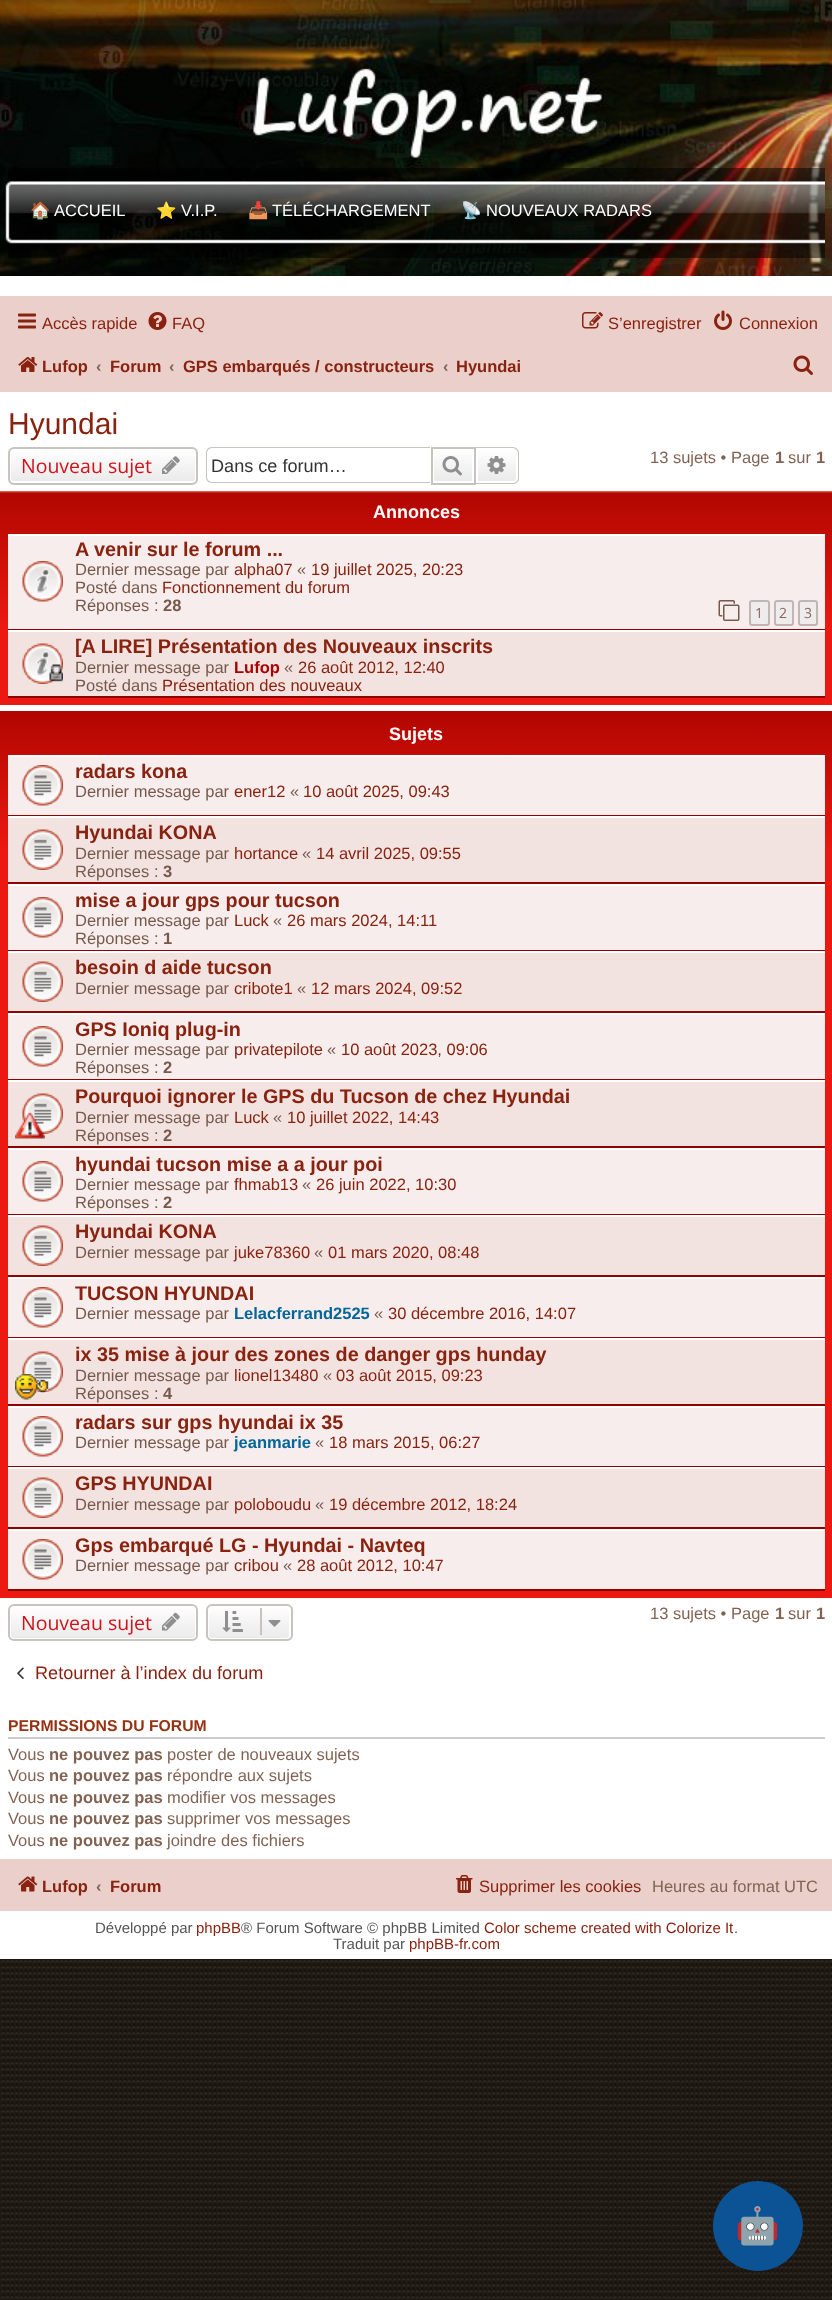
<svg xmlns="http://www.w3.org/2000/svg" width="832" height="2300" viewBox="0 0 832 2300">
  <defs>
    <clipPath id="clip1"><rect x="156" y="183" width="62" height="56"/></clipPath>
    <clipPath id="clip2"><rect x="248" y="183" width="183" height="56"/></clipPath>
    <clipPath id="clip3"><rect x="8" y="447" width="190" height="38" rx="6"/></clipPath>
    <linearGradient id="g1" gradientUnits="userSpaceOnUse" x1="103" y1="449" x2="103" y2="483"><stop offset="0" stop-color="rgb(255,255,255)"/><stop offset="1" stop-color="rgb(233,233,233)"/></linearGradient>
    <linearGradient id="g2" gradientUnits="userSpaceOnUse" x1="453" y1="449" x2="453" y2="483"><stop offset="0" stop-color="rgb(255,255,255)"/><stop offset="1" stop-color="rgb(233,233,233)"/></linearGradient>
    <linearGradient id="g3" gradientUnits="userSpaceOnUse" x1="497" y1="449" x2="497" y2="483"><stop offset="0" stop-color="rgb(255,255,255)"/><stop offset="1" stop-color="rgb(233,233,233)"/></linearGradient>
    <linearGradient id="g4" gradientUnits="userSpaceOnUse" x1="416" y1="491" x2="416" y2="705"><stop offset="0" stop-color="rgb(255,110,106)"/><stop offset="0.01" stop-color="rgb(177,6,0)"/><stop offset="0.64" stop-color="rgb(235,25,18)"/><stop offset="1" stop-color="rgb(235,25,18)"/></linearGradient>
    <linearGradient id="g5" gradientUnits="userSpaceOnUse" x1="416" y1="711" x2="416" y2="1598"><stop offset="0" stop-color="rgb(255,110,106)"/><stop offset="0" stop-color="rgb(177,6,0)"/><stop offset="0.16" stop-color="rgb(235,25,18)"/><stop offset="1" stop-color="rgb(235,25,18)"/></linearGradient>
    <clipPath id="clip4"><rect x="8" y="1604" width="190" height="37" rx="6"/></clipPath>
    <linearGradient id="g6" gradientUnits="userSpaceOnUse" x1="103" y1="1605" x2="103" y2="1640"><stop offset="0" stop-color="rgb(255,255,255)"/><stop offset="1" stop-color="rgb(233,233,233)"/></linearGradient>
    <clipPath id="clip5"><rect x="206" y="1604" width="87" height="37" rx="6"/></clipPath>
    <linearGradient id="g7" gradientUnits="userSpaceOnUse" x1="249" y1="1605" x2="249" y2="1640"><stop offset="0" stop-color="rgb(255,255,255)"/><stop offset="1" stop-color="rgb(233,233,233)"/></linearGradient>
  </defs>
  <rect width="100%" height="100%" fill="rgb(255,255,255)"/>
  <image x="0" y="1959" width="832" height="341" href="pic1.png"/>
  <image x="0" y="0" width="832" height="276" href="pic2.png"/>
  <rect x="8" y="168" width="817" height="90" fill="rgba(0,0,0,0.5)"/>
  <image x="5" y="172" width="820" height="80" href="pic3.png"/>
  <text x="30" y="216" font-family="Noto Color Emoji" font-size="16.5" fill="rgb(255,255,255)">🏠</text>
  <text x="54" y="216" font-family="Liberation Sans" font-size="16.5" fill="rgb(255,255,255)">ACCUEIL</text>
  <g clip-path="url(#clip1)">
    <text x="156" y="216" font-family="Noto Color Emoji" font-size="16.5" fill="rgb(255,255,255)">⭐</text>
  </g>
  <text x="181" y="216" font-family="Liberation Sans" font-size="16.5" fill="rgb(255,255,255)">V.I.P.</text>
  <g clip-path="url(#clip2)">
    <text x="248" y="216" font-family="Noto Color Emoji" font-size="16.5" fill="rgb(255,255,255)">📥</text>
  </g>
  <text x="272" y="216" font-family="Liberation Sans" font-size="16.5" fill="rgb(255,255,255)">TÉLÉCHARGEMENT</text>
  <text x="461" y="216" font-family="Noto Color Emoji" font-size="16.5" fill="rgb(255,255,255)">📡</text>
  <text x="486" y="216" font-family="Liberation Sans" font-size="16.5" fill="rgb(255,255,255)">NOUVEAUX RADARS</text>
  <rect x="0" y="296" width="832" height="96" fill="rgb(235,207,202)"/>
  <image x="18" y="313" width="18" height="16" href="pic4.png"/>
  <text x="42" y="329" font-family="Liberation Sans" font-size="16.5" fill="rgb(137,35,16)">Accès rapide</text>
  <image x="148" y="312" width="19" height="18" href="pic5.png"/>
  <text x="172" y="329" font-family="Liberation Sans" font-size="16.5" fill="rgb(137,35,16)">FAQ</text>
  <image x="582" y="312" width="21" height="17" href="pic6.png"/>
  <text x="608" y="329" font-family="Liberation Sans" font-size="16.5" fill="rgb(137,35,16)">S’enregistrer</text>
  <image x="714" y="310" width="18" height="20" href="pic7.png"/>
  <text x="739" y="329" font-family="Liberation Sans" font-size="16.5" fill="rgb(137,35,16)">Connexion</text>
  <image x="18" y="357" width="20" height="15" href="pic8.png"/>
  <text x="42" y="372" font-family="Liberation Sans" font-size="16.5" font-weight="bold" fill="rgb(137,35,16)">Lufop</text>
  <text x="96" y="372" font-family="Liberation Sans" font-size="16.5" font-weight="bold" fill="rgb(130,99,83)">‹</text>
  <text x="110" y="372" font-family="Liberation Sans" font-size="16.5" font-weight="bold" fill="rgb(137,35,16)">Forum</text>
  <text x="169" y="372" font-family="Liberation Sans" font-size="16.5" font-weight="bold" fill="rgb(130,99,83)">‹</text>
  <text x="183" y="372" font-family="Liberation Sans" font-size="16.5" font-weight="bold" fill="rgb(137,35,16)">GPS embarqués / constructeurs</text>
  <text x="443" y="372" font-family="Liberation Sans" font-size="16.5" font-weight="bold" fill="rgb(130,99,83)">‹</text>
  <text x="456" y="372" font-family="Liberation Sans" font-size="16.5" font-weight="bold" fill="rgb(137,35,16)">Hyundai</text>
  <image x="793" y="355" width="20" height="20" href="pic9.png"/>
  <text x="8" y="434" font-family="Liberation Sans" font-size="30" fill="rgb(137,35,16)">Hyundai</text>
  <g clip-path="url(#clip3)">
    <rect x="8" y="449" width="190" height="34" fill="url(#g1)"/>
  </g>
  <rect x="10" y="450" width="186" height="32" rx="4" fill="none" stroke="rgb(255,255,255)" stroke-width="2"/>
  <rect x="9" y="448" width="188" height="36" rx="5" fill="none" stroke="rgb(199,195,191)" stroke-width="2"/>
  <text x="21" y="473" font-family="Open Sans" font-size="19.5" fill="rgb(211,17,26)">Nouveau sujet</text>
  <image x="162" y="456" width="18" height="18" href="pic10.png"/>
  <path d="M212 447H430V483H212C208 483 206 480 206 477V453C206 450 208 447 212 447ZM212 448H430V482H212C209 482 207 479 207 477V453C207 451 209 448 212 448Z" fill="rgb(199,195,191)" fill-rule="evenodd"/>
  <text x="211" y="472" font-family="Liberation Sans" font-size="18.1" fill="rgb(51,51,51)">Dans ce forum…</text>
  <rect x="434" y="453" width="38" height="28" fill="url(#g2)"/>
  <rect x="432" y="448" width="43" height="36" fill="none" stroke="rgb(199,195,191)" stroke-width="2"/>
  <image x="442" y="456" width="20" height="20" href="pic11.png"/>
  <path d="M477 450H513C515 450 517 452 517 454V478C517 480 515 482 513 482H477Z" fill="url(#g3)" stroke="rgb(255,255,255)" stroke-width="2"/>
  <path d="M476 447H513C516 447 519 450 519 453V478C519 482 516 484 513 484H476ZM476 448H513C515 448 518 451 518 453V478C518 481 515 483 513 483H476Z" fill="rgb(199,195,191)" fill-rule="evenodd"/>
  <image x="487" y="456" width="19" height="18" href="pic12.png"/>
  <text x="650" y="463" font-family="Liberation Sans" font-size="16.5" fill="rgb(130,99,83)">13 sujets • Page</text>
  <text x="775" y="463" font-family="Liberation Sans" font-size="16.5" font-weight="bold" fill="rgb(130,99,83)">1</text>
  <text x="788" y="463" font-family="Liberation Sans" font-size="16.5" fill="rgb(130,99,83)">sur</text>
  <text x="816" y="463" font-family="Liberation Sans" font-size="16.5" font-weight="bold" fill="rgb(130,99,83)">1</text>
  <rect x="0" y="491" width="832" height="214" fill="url(#g4)"/>
  <text x="373" y="518" font-family="Liberation Sans" font-size="18" font-weight="bold" fill="rgb(255,255,255)">Annonces</text>
  <rect x="8" y="536" width="817" height="93" fill="rgb(247,237,236)"/>
  <rect x="8" y="534" width="817" height="2" fill="rgb(255,255,255)"/>
  <rect x="8" y="629" width="817" height="1" fill="rgb(143,4,0)"/>
  <image x="22" y="561" width="41" height="41" href="pic13.png"/>
  <text x="75" y="556" font-family="Liberation Sans" font-size="19.8" font-weight="bold" fill="rgb(137,35,16)">A venir sur le forum ...</text>
  <text x="75" y="575" font-family="Liberation Sans" font-size="16.5" fill="rgb(119,89,76)">Dernier message par</text>
  <text x="234" y="575" font-family="Liberation Sans" font-size="16.5" fill="rgb(137,35,16)">alpha07</text>
  <text x="297" y="575" font-family="Liberation Sans" font-size="16.5" fill="rgb(119,89,76)">«</text>
  <text x="311" y="575" font-family="Liberation Sans" font-size="16.5" fill="rgb(137,35,16)">19 juillet 2025, 20:23</text>
  <text x="75" y="593" font-family="Liberation Sans" font-size="16.5" fill="rgb(119,89,76)">Posté dans</text>
  <text x="162" y="593" font-family="Liberation Sans" font-size="16.5" fill="rgb(137,35,16)">Fonctionnement du forum</text>
  <text x="75" y="611" font-family="Liberation Sans" font-size="16.5" fill="rgb(119,89,76)">Réponses :</text>
  <text x="163" y="611" font-family="Liberation Sans" font-size="16.5" font-weight="bold" fill="rgb(119,89,76)">28</text>
  <image x="718" y="600" width="22" height="21" href="pic14.png"/>
  <rect x="750" y="601" width="19" height="24" rx="2" fill="rgb(238,236,236)" stroke="rgb(192,182,180)" stroke-width="2"/>
  <text x="755" y="618" font-family="Open Sans" font-size="14" fill="rgb(140,101,92)">1</text>
  <rect x="775" y="601" width="18" height="24" rx="2" fill="rgb(238,236,236)" stroke="rgb(192,182,180)" stroke-width="2"/>
  <text x="779" y="618" font-family="Open Sans" font-size="14" fill="rgb(140,101,92)">2</text>
  <rect x="799" y="601" width="18" height="24" rx="2" fill="rgb(238,236,236)" stroke="rgb(192,182,180)" stroke-width="2"/>
  <text x="804" y="618" font-family="Open Sans" font-size="14" fill="rgb(140,101,92)">3</text>
  <rect x="8" y="632" width="817" height="64" fill="rgb(242,227,225)"/>
  <rect x="8" y="630" width="817" height="2" fill="rgb(255,255,255)"/>
  <rect x="8" y="696" width="817" height="2" fill="rgb(143,4,0)"/>
  <image x="22" y="643" width="41" height="41" href="pic15.png"/>
  <text x="75" y="653" font-family="Liberation Sans" font-size="19.8" font-weight="bold" fill="rgb(137,35,16)">[A LIRE] Présentation des Nouveaux inscrits</text>
  <text x="75" y="673" font-family="Liberation Sans" font-size="16.5" fill="rgb(119,89,76)">Dernier message par</text>
  <text x="234" y="673" font-family="Liberation Sans" font-size="16.5" font-weight="bold" fill="rgb(170,0,0)">Lufop</text>
  <text x="284" y="673" font-family="Liberation Sans" font-size="16.5" fill="rgb(119,89,76)">«</text>
  <text x="298" y="673" font-family="Liberation Sans" font-size="16.5" fill="rgb(137,35,16)">26 août 2012, 12:40</text>
  <text x="75" y="691" font-family="Liberation Sans" font-size="16.5" fill="rgb(119,89,76)">Posté dans</text>
  <text x="162" y="691" font-family="Liberation Sans" font-size="16.5" fill="rgb(137,35,16)">Présentation des nouveaux</text>
  <rect x="0" y="711" width="832" height="887" fill="url(#g5)"/>
  <text x="389" y="740" font-family="Liberation Sans" font-size="18" font-weight="bold" fill="rgb(255,255,255)">Sujets</text>
  <rect x="8" y="757" width="817" height="58" fill="rgb(247,237,236)"/>
  <rect x="8" y="755" width="817" height="2" fill="rgb(255,255,255)"/>
  <rect x="8" y="815" width="817" height="1" fill="rgb(143,4,0)"/>
  <image x="22" y="765" width="41" height="41" href="pic16.png"/>
  <text x="75" y="778" font-family="Liberation Sans" font-size="19.8" font-weight="bold" fill="rgb(137,35,16)">radars kona</text>
  <text x="75" y="797" font-family="Liberation Sans" font-size="16.5" fill="rgb(119,89,76)">Dernier message par</text>
  <text x="234" y="797" font-family="Liberation Sans" font-size="16.5" fill="rgb(137,35,16)">ener12</text>
  <text x="290" y="797" font-family="Liberation Sans" font-size="16.5" fill="rgb(119,89,76)">«</text>
  <text x="303" y="797" font-family="Liberation Sans" font-size="16.5" fill="rgb(137,35,16)">10 août 2025, 09:43</text>
  <rect x="8" y="818" width="817" height="64" fill="rgb(242,227,225)"/>
  <rect x="8" y="816" width="817" height="2" fill="rgb(255,255,255)"/>
  <rect x="8" y="882" width="817" height="2" fill="rgb(143,4,0)"/>
  <image x="22" y="829" width="41" height="41" href="pic17.png"/>
  <text x="75" y="839" font-family="Liberation Sans" font-size="19.8" font-weight="bold" fill="rgb(137,35,16)">Hyundai KONA</text>
  <text x="75" y="859" font-family="Liberation Sans" font-size="16.5" fill="rgb(119,89,76)">Dernier message par</text>
  <text x="234" y="859" font-family="Liberation Sans" font-size="16.5" fill="rgb(137,35,16)">hortance</text>
  <text x="302" y="859" font-family="Liberation Sans" font-size="16.5" fill="rgb(119,89,76)">«</text>
  <text x="316" y="859" font-family="Liberation Sans" font-size="16.5" fill="rgb(137,35,16)">14 avril 2025, 09:55</text>
  <text x="75" y="877" font-family="Liberation Sans" font-size="16.5" fill="rgb(119,89,76)">Réponses :</text>
  <text x="163" y="877" font-family="Liberation Sans" font-size="16.5" font-weight="bold" fill="rgb(119,89,76)">3</text>
  <rect x="8" y="886" width="817" height="64" fill="rgb(247,237,236)"/>
  <rect x="8" y="884" width="817" height="2" fill="rgb(255,255,255)"/>
  <rect x="8" y="950" width="817" height="1" fill="rgb(143,4,0)"/>
  <image x="22" y="897" width="41" height="41" href="pic16.png"/>
  <text x="75" y="907" font-family="Liberation Sans" font-size="19.8" font-weight="bold" fill="rgb(137,35,16)">mise a jour gps pour tucson</text>
  <text x="75" y="926" font-family="Liberation Sans" font-size="16.5" fill="rgb(119,89,76)">Dernier message par</text>
  <text x="234" y="926" font-family="Liberation Sans" font-size="16.5" fill="rgb(137,35,16)">Luck</text>
  <text x="273" y="926" font-family="Liberation Sans" font-size="16.5" fill="rgb(119,89,76)">«</text>
  <text x="287" y="926" font-family="Liberation Sans" font-size="16.5" fill="rgb(137,35,16)">26 mars 2024, 14:11</text>
  <text x="75" y="944" font-family="Liberation Sans" font-size="16.5" fill="rgb(119,89,76)">Réponses :</text>
  <text x="163" y="944" font-family="Liberation Sans" font-size="16.5" font-weight="bold" fill="rgb(119,89,76)">1</text>
  <rect x="8" y="953" width="817" height="58" fill="rgb(242,227,225)"/>
  <rect x="8" y="951" width="817" height="2" fill="rgb(255,255,255)"/>
  <rect x="8" y="1011" width="817" height="2" fill="rgb(143,4,0)"/>
  <image x="22" y="961" width="41" height="41" href="pic17.png"/>
  <text x="75" y="974" font-family="Liberation Sans" font-size="19.8" font-weight="bold" fill="rgb(137,35,16)">besoin d aide tucson</text>
  <text x="75" y="994" font-family="Liberation Sans" font-size="16.5" fill="rgb(119,89,76)">Dernier message par</text>
  <text x="234" y="994" font-family="Liberation Sans" font-size="16.5" fill="rgb(137,35,16)">cribote1</text>
  <text x="297" y="994" font-family="Liberation Sans" font-size="16.5" fill="rgb(119,89,76)">«</text>
  <text x="311" y="994" font-family="Liberation Sans" font-size="16.5" fill="rgb(137,35,16)">12 mars 2024, 09:52</text>
  <rect x="8" y="1015" width="817" height="64" fill="rgb(247,237,236)"/>
  <rect x="8" y="1013" width="817" height="2" fill="rgb(255,255,255)"/>
  <rect x="8" y="1079" width="817" height="1" fill="rgb(143,4,0)"/>
  <image x="22" y="1026" width="41" height="41" href="pic16.png"/>
  <text x="75" y="1036" font-family="Liberation Sans" font-size="19.8" font-weight="bold" fill="rgb(137,35,16)">GPS Ioniq plug-in</text>
  <text x="75" y="1055" font-family="Liberation Sans" font-size="16.5" fill="rgb(119,89,76)">Dernier message par</text>
  <text x="234" y="1055" font-family="Liberation Sans" font-size="16.5" fill="rgb(137,35,16)">privatepilote</text>
  <text x="327" y="1055" font-family="Liberation Sans" font-size="16.5" fill="rgb(119,89,76)">«</text>
  <text x="341" y="1055" font-family="Liberation Sans" font-size="16.5" fill="rgb(137,35,16)">10 août 2023, 09:06</text>
  <text x="75" y="1073" font-family="Liberation Sans" font-size="16.5" fill="rgb(119,89,76)">Réponses :</text>
  <text x="163" y="1073" font-family="Liberation Sans" font-size="16.5" font-weight="bold" fill="rgb(119,89,76)">2</text>
  <rect x="8" y="1082" width="817" height="64" fill="rgb(242,227,225)"/>
  <rect x="8" y="1080" width="817" height="2" fill="rgb(255,255,255)"/>
  <rect x="8" y="1146" width="817" height="2" fill="rgb(143,4,0)"/>
  <image x="22" y="1093" width="41" height="41" href="pic17.png"/>
  <image x="15" y="1112" width="30" height="27" href="pic18.png"/>
  <text x="75" y="1103" font-family="Liberation Sans" font-size="19.8" font-weight="bold" fill="rgb(137,35,16)">Pourquoi ignorer le GPS du Tucson de chez Hyundai</text>
  <text x="75" y="1123" font-family="Liberation Sans" font-size="16.5" fill="rgb(119,89,76)">Dernier message par</text>
  <text x="234" y="1123" font-family="Liberation Sans" font-size="16.5" fill="rgb(137,35,16)">Luck</text>
  <text x="273" y="1123" font-family="Liberation Sans" font-size="16.5" fill="rgb(119,89,76)">«</text>
  <text x="287" y="1123" font-family="Liberation Sans" font-size="16.5" fill="rgb(137,35,16)">10 juillet 2022, 14:43</text>
  <text x="75" y="1141" font-family="Liberation Sans" font-size="16.5" fill="rgb(119,89,76)">Réponses :</text>
  <text x="163" y="1141" font-family="Liberation Sans" font-size="16.5" font-weight="bold" fill="rgb(119,89,76)">2</text>
  <rect x="8" y="1150" width="817" height="64" fill="rgb(247,237,236)"/>
  <rect x="8" y="1148" width="817" height="2" fill="rgb(255,255,255)"/>
  <rect x="8" y="1214" width="817" height="1" fill="rgb(143,4,0)"/>
  <image x="22" y="1161" width="41" height="41" href="pic16.png"/>
  <text x="75" y="1171" font-family="Liberation Sans" font-size="19.8" font-weight="bold" fill="rgb(137,35,16)">hyundai tucson mise a a jour poi</text>
  <text x="75" y="1190" font-family="Liberation Sans" font-size="16.5" fill="rgb(119,89,76)">Dernier message par</text>
  <text x="234" y="1190" font-family="Liberation Sans" font-size="16.5" fill="rgb(137,35,16)">fhmab13</text>
  <text x="302" y="1190" font-family="Liberation Sans" font-size="16.5" fill="rgb(119,89,76)">«</text>
  <text x="316" y="1190" font-family="Liberation Sans" font-size="16.5" fill="rgb(137,35,16)">26 juin 2022, 10:30</text>
  <text x="75" y="1208" font-family="Liberation Sans" font-size="16.5" fill="rgb(119,89,76)">Réponses :</text>
  <text x="163" y="1208" font-family="Liberation Sans" font-size="16.5" font-weight="bold" fill="rgb(119,89,76)">2</text>
  <rect x="8" y="1217" width="817" height="58" fill="rgb(242,227,225)"/>
  <rect x="8" y="1215" width="817" height="2" fill="rgb(255,255,255)"/>
  <rect x="8" y="1275" width="817" height="2" fill="rgb(143,4,0)"/>
  <image x="22" y="1225" width="41" height="41" href="pic17.png"/>
  <text x="75" y="1238" font-family="Liberation Sans" font-size="19.8" font-weight="bold" fill="rgb(137,35,16)">Hyundai KONA</text>
  <text x="75" y="1258" font-family="Liberation Sans" font-size="16.5" fill="rgb(119,89,76)">Dernier message par</text>
  <text x="234" y="1258" font-family="Liberation Sans" font-size="16.5" fill="rgb(137,35,16)">juke78360</text>
  <text x="314" y="1258" font-family="Liberation Sans" font-size="16.5" fill="rgb(119,89,76)">«</text>
  <text x="328" y="1258" font-family="Liberation Sans" font-size="16.5" fill="rgb(137,35,16)">01 mars 2020, 08:48</text>
  <rect x="8" y="1279" width="817" height="58" fill="rgb(247,237,236)"/>
  <rect x="8" y="1277" width="817" height="2" fill="rgb(255,255,255)"/>
  <rect x="8" y="1337" width="817" height="1" fill="rgb(143,4,0)"/>
  <image x="22" y="1287" width="41" height="41" href="pic16.png"/>
  <text x="75" y="1300" font-family="Liberation Sans" font-size="19.8" font-weight="bold" fill="rgb(137,35,16)">TUCSON HYUNDAI</text>
  <text x="75" y="1319" font-family="Liberation Sans" font-size="16.5" fill="rgb(119,89,76)">Dernier message par</text>
  <text x="234" y="1319" font-family="Liberation Sans" font-size="16.5" font-weight="bold" fill="rgb(0,102,153)">Lelacferrand2525</text>
  <text x="374" y="1319" font-family="Liberation Sans" font-size="16.5" fill="rgb(119,89,76)">«</text>
  <text x="388" y="1319" font-family="Liberation Sans" font-size="16.5" fill="rgb(137,35,16)">30 décembre 2016, 14:07</text>
  <rect x="8" y="1340" width="817" height="64" fill="rgb(242,227,225)"/>
  <rect x="8" y="1338" width="817" height="2" fill="rgb(255,255,255)"/>
  <rect x="8" y="1404" width="817" height="2" fill="rgb(143,4,0)"/>
  <image x="22" y="1351" width="41" height="41" href="pic17.png"/>
  <image x="15" y="1374" width="34" height="26" href="pic19.png"/>
  <text x="75" y="1361" font-family="Liberation Sans" font-size="19.8" font-weight="bold" fill="rgb(137,35,16)">ix 35 mise à jour des zones de danger gps hunday</text>
  <text x="75" y="1381" font-family="Liberation Sans" font-size="16.5" fill="rgb(119,89,76)">Dernier message par</text>
  <text x="234" y="1381" font-family="Liberation Sans" font-size="16.5" fill="rgb(137,35,16)">lionel13480</text>
  <text x="323" y="1381" font-family="Liberation Sans" font-size="16.5" fill="rgb(119,89,76)">«</text>
  <text x="336" y="1381" font-family="Liberation Sans" font-size="16.5" fill="rgb(137,35,16)">03 août 2015, 09:23</text>
  <text x="75" y="1399" font-family="Liberation Sans" font-size="16.5" fill="rgb(119,89,76)">Réponses :</text>
  <text x="163" y="1399" font-family="Liberation Sans" font-size="16.5" font-weight="bold" fill="rgb(119,89,76)">4</text>
  <rect x="8" y="1408" width="817" height="58" fill="rgb(247,237,236)"/>
  <rect x="8" y="1406" width="817" height="2" fill="rgb(255,255,255)"/>
  <rect x="8" y="1466" width="817" height="1" fill="rgb(143,4,0)"/>
  <image x="22" y="1416" width="41" height="41" href="pic16.png"/>
  <text x="75" y="1429" font-family="Liberation Sans" font-size="19.8" font-weight="bold" fill="rgb(137,35,16)">radars sur gps hyundai ix 35</text>
  <text x="75" y="1448" font-family="Liberation Sans" font-size="16.5" fill="rgb(119,89,76)">Dernier message par</text>
  <text x="234" y="1448" font-family="Liberation Sans" font-size="16.5" font-weight="bold" fill="rgb(0,102,153)">jeanmarie</text>
  <text x="315" y="1448" font-family="Liberation Sans" font-size="16.5" fill="rgb(119,89,76)">«</text>
  <text x="329" y="1448" font-family="Liberation Sans" font-size="16.5" fill="rgb(137,35,16)">18 mars 2015, 06:27</text>
  <rect x="8" y="1469" width="817" height="58" fill="rgb(242,227,225)"/>
  <rect x="8" y="1467" width="817" height="2" fill="rgb(255,255,255)"/>
  <rect x="8" y="1527" width="817" height="2" fill="rgb(143,4,0)"/>
  <image x="22" y="1477" width="41" height="41" href="pic17.png"/>
  <text x="75" y="1490" font-family="Liberation Sans" font-size="19.8" font-weight="bold" fill="rgb(137,35,16)">GPS HYUNDAI</text>
  <text x="75" y="1510" font-family="Liberation Sans" font-size="16.5" fill="rgb(119,89,76)">Dernier message par</text>
  <text x="234" y="1510" font-family="Liberation Sans" font-size="16.5" fill="rgb(137,35,16)">poloboudu</text>
  <text x="315" y="1510" font-family="Liberation Sans" font-size="16.5" fill="rgb(119,89,76)">«</text>
  <text x="329" y="1510" font-family="Liberation Sans" font-size="16.5" fill="rgb(137,35,16)">19 décembre 2012, 18:24</text>
  <rect x="8" y="1531" width="817" height="58" fill="rgb(247,237,236)"/>
  <rect x="8" y="1529" width="817" height="2" fill="rgb(255,255,255)"/>
  <rect x="8" y="1589" width="817" height="2" fill="rgb(143,4,0)"/>
  <image x="22" y="1539" width="41" height="41" href="pic16.png"/>
  <text x="75" y="1552" font-family="Liberation Sans" font-size="19.8" font-weight="bold" fill="rgb(137,35,16)">Gps embarqué LG - Hyundai - Navteq</text>
  <text x="75" y="1571" font-family="Liberation Sans" font-size="16.5" fill="rgb(119,89,76)">Dernier message par</text>
  <text x="234" y="1571" font-family="Liberation Sans" font-size="16.5" fill="rgb(137,35,16)">cribou</text>
  <text x="283" y="1571" font-family="Liberation Sans" font-size="16.5" fill="rgb(119,89,76)">«</text>
  <text x="297" y="1571" font-family="Liberation Sans" font-size="16.5" fill="rgb(137,35,16)">28 août 2012, 10:47</text>
  <g clip-path="url(#clip4)">
    <rect x="8" y="1605" width="190" height="35" fill="url(#g6)"/>
  </g>
  <rect x="10" y="1606" width="186" height="33" rx="4" fill="none" stroke="rgb(255,255,255)" stroke-width="2"/>
  <rect x="9" y="1605" width="188" height="35" rx="5" fill="none" stroke="rgb(199,195,191)" stroke-width="2"/>
  <text x="21" y="1630" font-family="Open Sans" font-size="19.5" fill="rgb(211,17,26)">Nouveau sujet</text>
  <image x="162" y="1612" width="18" height="19" href="pic20.png"/>
  <g clip-path="url(#clip5)">
    <rect x="206" y="1605" width="87" height="35" fill="url(#g7)"/>
  </g>
  <rect x="208" y="1606" width="82" height="33" rx="4" fill="none" stroke="rgb(255,255,255)" stroke-width="2"/>
  <rect x="207" y="1605" width="85" height="35" rx="5" fill="none" stroke="rgb(199,195,191)" stroke-width="2"/>
  <image x="222" y="1611" width="21" height="21" href="pic21.png"/>
  <rect x="260" y="1608" width="2" height="27" fill="rgb(199,195,191)"/>
  <image x="268" y="1620" width="13" height="7" href="pic22.png"/>
  <text x="650" y="1619" font-family="Liberation Sans" font-size="16.5" fill="rgb(130,99,83)">13 sujets • Page</text>
  <text x="775" y="1619" font-family="Liberation Sans" font-size="16.5" font-weight="bold" fill="rgb(130,99,83)">1</text>
  <text x="788" y="1619" font-family="Liberation Sans" font-size="16.5" fill="rgb(130,99,83)">sur</text>
  <text x="816" y="1619" font-family="Liberation Sans" font-size="16.5" font-weight="bold" fill="rgb(130,99,83)">1</text>
  <image x="17" y="1667" width="7" height="12" href="pic23.png"/>
  <text x="35" y="1679" font-family="Liberation Sans" font-size="18.1" fill="rgb(137,35,16)">Retourner à l’index du forum</text>
  <rect x="8" y="1737" width="817" height="2" fill="rgb(204,204,204)"/>
  <text x="8" y="1731" font-family="Liberation Sans" font-size="15.75" font-weight="bold" fill="rgb(152,49,17)">PERMISSIONS DU FORUM</text>
  <text x="8" y="1760" font-family="Liberation Sans" font-size="16.5" fill="rgb(130,99,83)">Vous</text>
  <text x="49" y="1760" font-family="Liberation Sans" font-size="16.5" font-weight="bold" fill="rgb(130,99,83)">ne pouvez pas</text>
  <g font-family="Liberation Sans" font-size="16.5" fill="rgb(130,99,83)">
    <text x="167" y="1760">poster de nouveaux sujets</text>
    <text x="8" y="1781">Vous</text>
  </g>
  <text x="49" y="1781" font-family="Liberation Sans" font-size="16.5" font-weight="bold" fill="rgb(130,99,83)">ne pouvez pas</text>
  <g font-family="Liberation Sans" font-size="16.5" fill="rgb(130,99,83)">
    <text x="167" y="1781">répondre aux sujets</text>
    <text x="8" y="1803">Vous</text>
  </g>
  <text x="49" y="1803" font-family="Liberation Sans" font-size="16.5" font-weight="bold" fill="rgb(130,99,83)">ne pouvez pas</text>
  <g font-family="Liberation Sans" font-size="16.5" fill="rgb(130,99,83)">
    <text x="167" y="1803">modifier vos messages</text>
    <text x="8" y="1824">Vous</text>
  </g>
  <text x="49" y="1824" font-family="Liberation Sans" font-size="16.5" font-weight="bold" fill="rgb(130,99,83)">ne pouvez pas</text>
  <g font-family="Liberation Sans" font-size="16.5" fill="rgb(130,99,83)">
    <text x="167" y="1824">supprimer vos messages</text>
    <text x="8" y="1846">Vous</text>
  </g>
  <text x="49" y="1846" font-family="Liberation Sans" font-size="16.5" font-weight="bold" fill="rgb(130,99,83)">ne pouvez pas</text>
  <text x="167" y="1846" font-family="Liberation Sans" font-size="16.5" fill="rgb(130,99,83)">joindre des fichiers</text>
  <rect x="0" y="1859" width="832" height="52" fill="rgb(235,207,202)"/>
  <image x="18" y="1876" width="20" height="16" href="pic24.png"/>
  <text x="42" y="1892" font-family="Liberation Sans" font-size="16.5" font-weight="bold" fill="rgb(137,35,16)">Lufop</text>
  <text x="96" y="1892" font-family="Liberation Sans" font-size="16.5" font-weight="bold" fill="rgb(130,99,83)">‹</text>
  <text x="110" y="1892" font-family="Liberation Sans" font-size="16.5" font-weight="bold" fill="rgb(137,35,16)">Forum</text>
  <image x="456" y="1875" width="17" height="18" href="pic25.png"/>
  <text x="479" y="1892" font-family="Liberation Sans" font-size="16.5" fill="rgb(137,35,16)">Supprimer les cookies</text>
  <text x="652" y="1892" font-family="Liberation Sans" font-size="16.5" fill="rgb(130,99,83)">Heures au format UTC</text>
  <text x="95" y="1933" font-family="Liberation Sans" font-size="15" fill="rgb(85,85,85)">Développé par</text>
  <text x="196" y="1933" font-family="Liberation Sans" font-size="15" fill="rgb(137,35,16)">phpBB</text>
  <text x="241" y="1933" font-family="Liberation Sans" font-size="15" fill="rgb(85,85,85)">® Forum Software © phpBB Limited</text>
  <text x="484" y="1933" font-family="Liberation Sans" font-size="15" fill="rgb(137,35,16)">Color scheme created with Colorize It</text>
  <g font-family="Liberation Sans" font-size="15" fill="rgb(85,85,85)">
    <text x="734" y="1933">.</text>
    <text x="333" y="1949">Traduit par</text>
  </g>
  <text x="409" y="1949" font-family="Liberation Sans" font-size="15" fill="rgb(137,35,16)">phpBB-fr.com</text>
  <circle cx="758" cy="2226" r="45" fill="rgb(11,83,148)"/>
  <text x="735" y="2238" font-family="Noto Color Emoji" font-size="36" fill="rgb(255,255,255)">🤖</text>
</svg>
